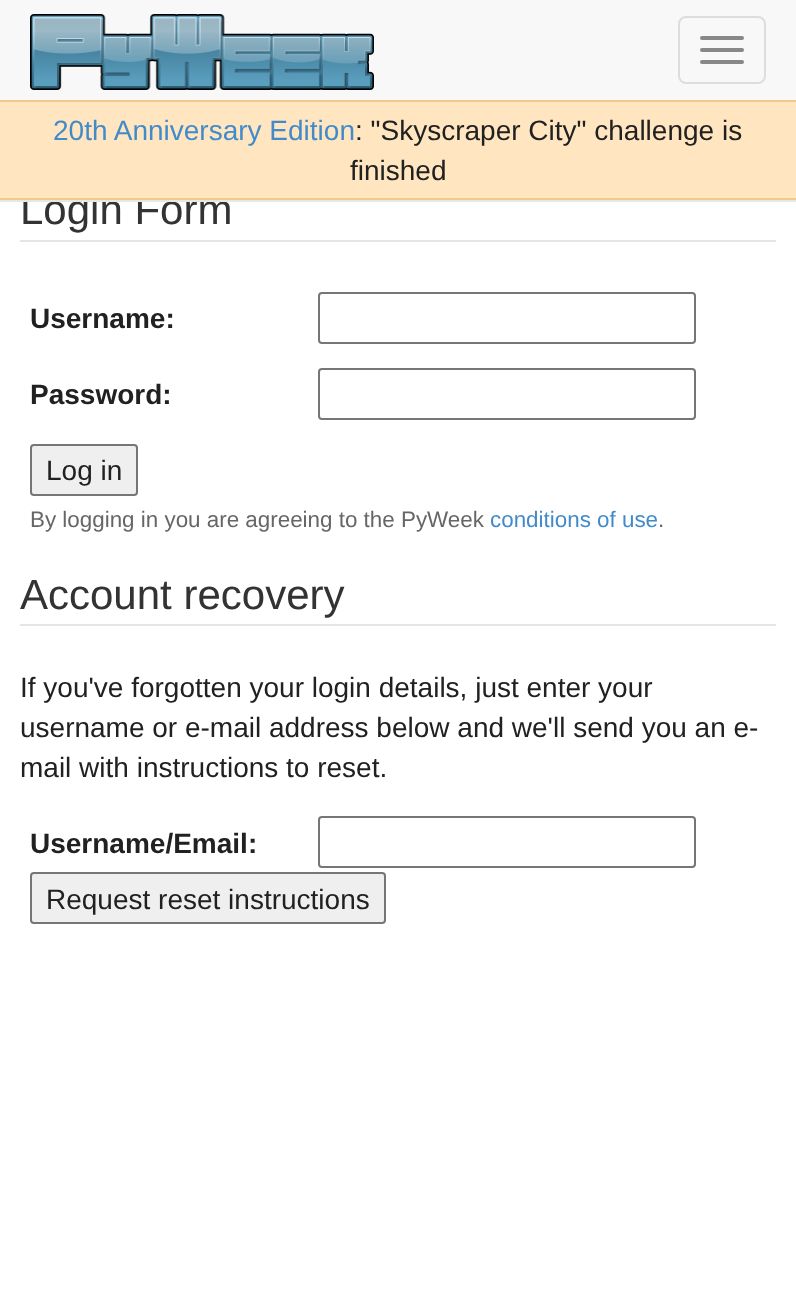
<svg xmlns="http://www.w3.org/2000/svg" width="796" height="1304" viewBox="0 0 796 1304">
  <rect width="100%" height="100%" fill="rgb(255,255,255)"/>
  <rect x="0" y="0" width="796" height="100" fill="rgb(248,248,248)"/>
  <text x="20" y="224" font-family="Liberation Sans" font-size="42" fill="rgb(51,51,51)">Login Form</text>
  <rect x="0" y="200" width="796" height="2" fill="rgb(231,231,231)"/>
  <image x="30" y="14" width="344" height="76" href="pic1.png"/>
  <rect x="679" y="17" width="86" height="66" rx="7" fill="none" stroke="rgb(221,221,221)" stroke-width="2"/>
  <rect x="700" y="36" width="44" height="4" rx="2" fill="rgb(136,136,136)"/>
  <rect x="700" y="48" width="44" height="4" rx="2" fill="rgb(136,136,136)"/>
  <rect x="700" y="60" width="44" height="4" rx="2" fill="rgb(136,136,136)"/>
  <rect x="0" y="102" width="796" height="96" fill="rgb(255,230,192)"/>
  <rect x="0" y="100" width="796" height="2" fill="rgb(238,204,136)"/>
  <rect x="0" y="198" width="796" height="2" fill="rgb(238,204,136)"/>
  <text x="53" y="140" font-family="Liberation Sans" font-size="28" fill="rgb(66,139,202)">20th Anniversary Edition</text>
  <g font-family="Liberation Sans" font-size="28" fill="rgb(33,33,33)">
    <text x="355" y="140">: "Skyscraper City" challenge is</text>
    <text x="350" y="180">finished</text>
  </g>
  <rect x="20" y="240" width="756" height="2" fill="rgb(229,229,229)"/>
  <text x="30" y="328" font-family="Liberation Sans" font-size="28" font-weight="bold" fill="rgb(33,33,33)">Username:</text>
  <rect x="319" y="293" width="376" height="50" rx="3" fill="none" stroke="rgb(118,118,118)" stroke-width="2"/>
  <text x="30" y="404" font-family="Liberation Sans" font-size="28" font-weight="bold" fill="rgb(33,33,33)">Password:</text>
  <rect x="319" y="369" width="376" height="50" rx="3" fill="none" stroke="rgb(118,118,118)" stroke-width="2"/>
  <rect x="31" y="445" width="106" height="50" rx="3" fill="rgb(239,239,239)" stroke="rgb(118,118,118)" stroke-width="2"/>
  <text x="46" y="480" font-family="Liberation Sans" font-size="28" fill="rgb(33,33,33)">Log in</text>
  <text x="30" y="527" font-family="Liberation Sans" font-size="22.4" fill="rgb(102,102,102)">By logging in you are agreeing to the PyWeek</text>
  <text x="490" y="527" font-family="Liberation Sans" font-size="22.4" fill="rgb(66,139,202)">conditions of use</text>
  <text x="658" y="527" font-family="Liberation Sans" font-size="22.4" fill="rgb(102,102,102)">.</text>
  <rect x="20" y="624" width="756" height="2" fill="rgb(229,229,229)"/>
  <text x="20" y="609" font-family="Liberation Sans" font-size="42" fill="rgb(51,51,51)">Account recovery</text>
  <g font-family="Liberation Sans" font-size="28" fill="rgb(33,33,33)">
    <text>
      <tspan x="20" y="697">If you've forgotten your login details, just enter your</tspan>
      <tspan x="20" y="737">username or e-mail address below and we'll send you an e-</tspan>
      <tspan x="20" y="777">mail with instructions to reset.</tspan>
    </text>
  </g>
  <text x="30" y="853" font-family="Liberation Sans" font-size="28" font-weight="bold" fill="rgb(33,33,33)">Username/Email:</text>
  <rect x="319" y="817" width="376" height="50" rx="3" fill="none" stroke="rgb(118,118,118)" stroke-width="2"/>
  <rect x="31" y="873" width="354" height="50" rx="3" fill="rgb(239,239,239)" stroke="rgb(118,118,118)" stroke-width="2"/>
  <text x="46" y="909" font-family="Liberation Sans" font-size="28" fill="rgb(33,33,33)">Request reset instructions</text>
</svg>
